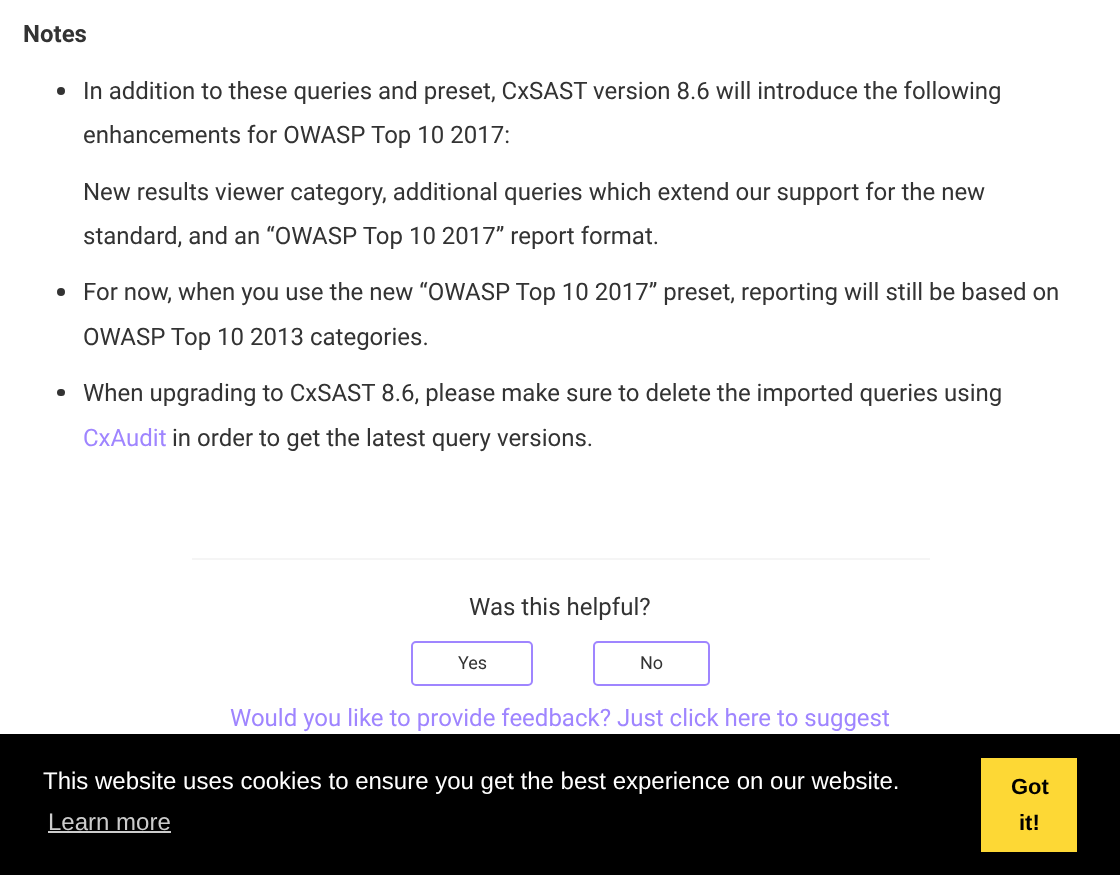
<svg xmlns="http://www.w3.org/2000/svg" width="1120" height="875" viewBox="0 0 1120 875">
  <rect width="100%" height="100%" fill="rgb(255,255,255)"/>
  <text x="23" y="42" font-family="Roboto" font-size="24" font-weight="bold" fill="rgb(51,51,51)">Notes</text>
  <circle cx="61" cy="91" r="4" fill="rgb(51,51,51)"/>
  <g font-family="Roboto" font-size="24" fill="rgb(51,51,51)">
    <text>
      <tspan x="83" y="99">In addition to these queries and preset, CxSAST version 8.6 will introduce the following</tspan>
      <tspan x="83" y="143">enhancements for OWASP Top 10 2017:</tspan>
    </text>
    <text>
      <tspan x="83" y="200">New results viewer category, additional queries which extend our support for the new</tspan>
      <tspan x="83" y="244">standard, and an “OWASP Top 10 2017” report format.</tspan>
    </text>
  </g>
  <circle cx="61" cy="292" r="4" fill="rgb(51,51,51)"/>
  <g font-family="Roboto" font-size="24" fill="rgb(51,51,51)">
    <text>
      <tspan x="83" y="300">For now, when you use the new “OWASP Top 10 2017” preset, reporting will still be based on</tspan>
      <tspan x="83" y="345">OWASP Top 10 2013 categories.</tspan>
    </text>
  </g>
  <rect x="57" y="389" width="8" height="7" rx="3.5" fill="rgb(51,51,51)"/>
  <text x="83" y="401" font-family="Roboto" font-size="24" fill="rgb(51,51,51)">When upgrading to CxSAST 8.6, please make sure to delete the imported queries using</text>
  <text x="83" y="446" font-family="Roboto" font-size="24" fill="rgb(159,133,255)">CxAudit</text>
  <text x="172" y="446" font-family="Roboto" font-size="24" fill="rgb(51,51,51)">in order to get the latest query versions.</text>
  <rect x="192" y="558" width="738" height="2" fill="rgb(245,245,245)"/>
  <text x="469" y="615" font-family="Roboto" font-size="24" fill="rgb(51,51,51)">Was this helpful?</text>
  <rect x="412" y="642" width="120" height="43" rx="4" fill="none" stroke="rgb(159,133,255)" stroke-width="2"/>
  <text x="458" y="669" font-family="Roboto" font-size="18" fill="rgb(51,51,51)">Yes</text>
  <rect x="594" y="642" width="115" height="43" rx="4" fill="none" stroke="rgb(159,133,255)" stroke-width="2"/>
  <text x="640" y="669" font-family="Roboto" font-size="18" fill="rgb(51,51,51)">No</text>
  <text x="230" y="726" font-family="Roboto" font-size="24" fill="rgb(159,133,255)">Would you like to provide feedback? Just click here to suggest</text>
  <rect x="0" y="734" width="1120" height="141" fill="rgb(0,0,0)"/>
  <text x="43" y="789" font-family="Liberation Sans" font-size="24" fill="rgb(255,255,255)">This website uses cookies to ensure you get the best experience on our website.</text>
  <text x="48" y="830" font-family="Liberation Sans" font-size="24" fill="rgb(204,204,204)">Learn more</text>
  <rect x="48" y="831" width="123" height="2" fill="rgb(204,204,204)"/>
  <rect x="981" y="758" width="96" height="94" fill="rgb(253,216,53)"/>
  <g font-family="Liberation Sans" font-size="22" font-weight="bold" fill="rgb(0,0,0)">
    <text x="1011" y="794">Got</text>
    <text x="1019" y="830">it!</text>
  </g>
</svg>
